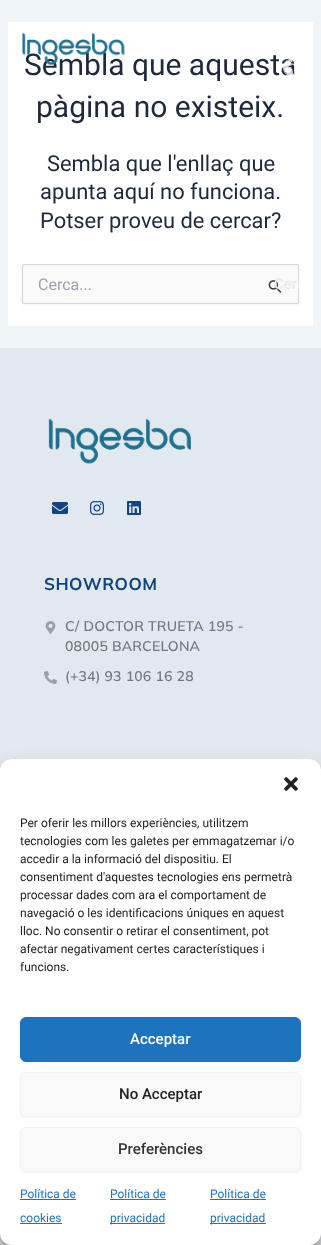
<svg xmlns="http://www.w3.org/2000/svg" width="321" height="1245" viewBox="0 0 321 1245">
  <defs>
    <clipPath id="clip1"><rect x="254" y="264" width="45" height="41" rx="2"/></clipPath>
  </defs>
  <rect width="100%" height="100%" fill="rgb(240,245,250)"/>
  <rect x="8" y="22" width="305" height="304" fill="rgb(255,255,255)"/>
  <text x="24" y="75" font-family="Roboto" font-size="30" fill="rgb(30,41,59)">Sembla que aquesta</text>
  <image x="21" y="32" width="104" height="34" href="pic1.png"/>
  <image x="283" y="59" width="12" height="17" href="pic2.png"/>
  <text x="36" y="117" font-family="Roboto" font-size="30" fill="rgb(30,41,59)">pàgina no existeix.</text>
  <g font-family="Roboto" font-size="21.9" fill="rgb(30,41,59)">
    <text x="47" y="171">Sembla que l'enllaç que</text>
    <text>
      <tspan x="40" y="199">apunta aquí no funciona.</tspan>
      <tspan x="40" y="228">Potser proveu de cercar?</tspan>
    </text>
  </g>
  <rect x="22" y="265" width="277" height="40" rx="2" fill="rgba(0,0,0,0.05)" filter="blur(1px)"/>
  <rect x="22.5" y="264.5" width="276" height="39" rx="1.5" fill="rgb(250,250,250)" stroke="rgb(209,213,219)"/>
  <text x="38" y="290" font-family="Roboto" font-size="16" fill="rgb(156,163,175)">Cerca...</text>
  <image x="268" y="280" width="14" height="13" href="pic3.png"/>
  <g clip-path="url(#clip1)">
    <text x="274" y="289" font-family="Roboto" font-size="15" font-weight="500" fill="rgb(232,232,232)">Cerc</text>
  </g>
  <rect x="0" y="348" width="321" height="897" fill="rgb(225,233,239)"/>
  <image x="48" y="418" width="143" height="46" href="pic4.png"/>
  <image x="52" y="502" width="16" height="12" href="pic5.png"/>
  <image x="90" y="501" width="14" height="14" href="pic6.png"/>
  <image x="127" y="501" width="14" height="14" href="pic7.png"/>
  <text x="44" y="590" font-family="Mulish" font-size="17" font-weight="bold" letter-spacing="0.5" fill="rgb(17,69,129)">SHOWROOM</text>
  <image x="45" y="621" width="11" height="13" href="pic8.png"/>
  <g font-family="Mulish" font-size="14" font-weight="600" letter-spacing="0.2" fill="rgb(113,121,131)">
    <text>
      <tspan x="65" y="631">C/ DOCTOR TRUETA 195 -</tspan>
      <tspan x="65" y="651">08005 BARCELONA</tspan>
    </text>
  </g>
  <image x="44" y="671" width="13" height="13" href="pic9.png"/>
  <text x="65" y="681" font-family="Mulish" font-size="14" font-weight="600" letter-spacing="0.2" fill="rgb(113,121,131)">(+34) 93 106 16 28</text>
  <rect x="0" y="765" width="321" height="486" rx="12" fill="rgba(0,0,0,0.23)" filter="blur(3px)"/>
  <rect x="0" y="769" width="321" height="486" rx="12" fill="rgba(0,0,0,0.19)" filter="blur(10px)"/>
  <rect x="0" y="759" width="321" height="486" rx="12" fill="rgb(255,255,255)"/>
  <image x="284" y="777" width="14" height="14" href="pic10.png"/>
  <g font-family="Roboto" font-size="12" fill="rgb(34,34,34)">
    <text>
      <tspan x="20" y="827">Per oferir les millors experiències, utilitzem</tspan>
      <tspan x="20" y="845">tecnologies com les galetes per emmagatzemar i/o</tspan>
      <tspan x="20" y="863">accedir a la informació del dispositiu. El</tspan>
      <tspan x="20" y="881">consentiment d'aquestes tecnologies ens permetrà</tspan>
      <tspan x="20" y="899">processar dades com ara el comportament de</tspan>
      <tspan x="20" y="917">navegació o les identificacions úniques en aquest</tspan>
      <tspan x="20" y="935">lloc. No consentir o retirar el consentiment, pot</tspan>
      <tspan x="20" y="953">afectar negativament certes característiques i</tspan>
      <tspan x="20" y="971">funcions.</tspan>
    </text>
  </g>
  <rect x="20" y="1018" width="281" height="45" rx="6" fill="rgba(0,0,0,0.05)" filter="blur(1px)"/>
  <rect x="20.5" y="1017.5" width="280" height="44" rx="5.5" fill="rgb(30,115,190)" stroke="rgb(30,115,190)"/>
  <text x="130" y="1044" font-family="Roboto" font-size="15" font-weight="500" fill="rgb(255,255,255)">Acceptar</text>
  <rect x="20" y="1073" width="281" height="45" rx="6" fill="rgba(0,0,0,0.05)" filter="blur(1px)"/>
  <rect x="20.5" y="1072.5" width="280" height="44" rx="5.5" fill="rgb(249,249,249)" stroke="rgb(242,242,242)"/>
  <text x="119" y="1099" font-family="Roboto" font-size="15" font-weight="500" fill="rgb(34,34,34)">No Acceptar</text>
  <rect x="20" y="1128" width="281" height="45" rx="6" fill="rgba(0,0,0,0.05)" filter="blur(1px)"/>
  <rect x="20.5" y="1127.5" width="280" height="44" rx="5.5" fill="rgb(249,249,249)" stroke="rgb(242,242,242)"/>
  <text x="118" y="1154" font-family="Roboto" font-size="15" font-weight="500" fill="rgb(51,51,51)">Preferències</text>
  <text x="20" y="1198" font-family="Roboto" font-size="12" fill="rgb(30,115,190)">Política de</text>
  <rect x="20" y="1199" width="56" height="1" fill="rgb(30,115,190)"/>
  <text x="20" y="1222" font-family="Roboto" font-size="12" fill="rgb(30,115,190)">cookies</text>
  <rect x="20" y="1223" width="42" height="1" fill="rgb(30,115,190)"/>
  <text x="110" y="1198" font-family="Roboto" font-size="12" fill="rgb(30,115,190)">Política de</text>
  <rect x="110" y="1199" width="56" height="1" fill="rgb(30,115,190)"/>
  <rect x="110" y="1223" width="55" height="1" fill="rgb(30,115,190)"/>
  <g font-family="Roboto" font-size="12" fill="rgb(30,115,190)">
    <text x="110" y="1222">privacidad</text>
    <text x="210" y="1198">Política de</text>
  </g>
  <rect x="210" y="1199" width="56" height="1" fill="rgb(30,115,190)"/>
  <rect x="210" y="1223" width="56" height="1" fill="rgb(30,115,190)"/>
  <text x="210" y="1222" font-family="Roboto" font-size="12" fill="rgb(30,115,190)">privacidad</text>
</svg>
